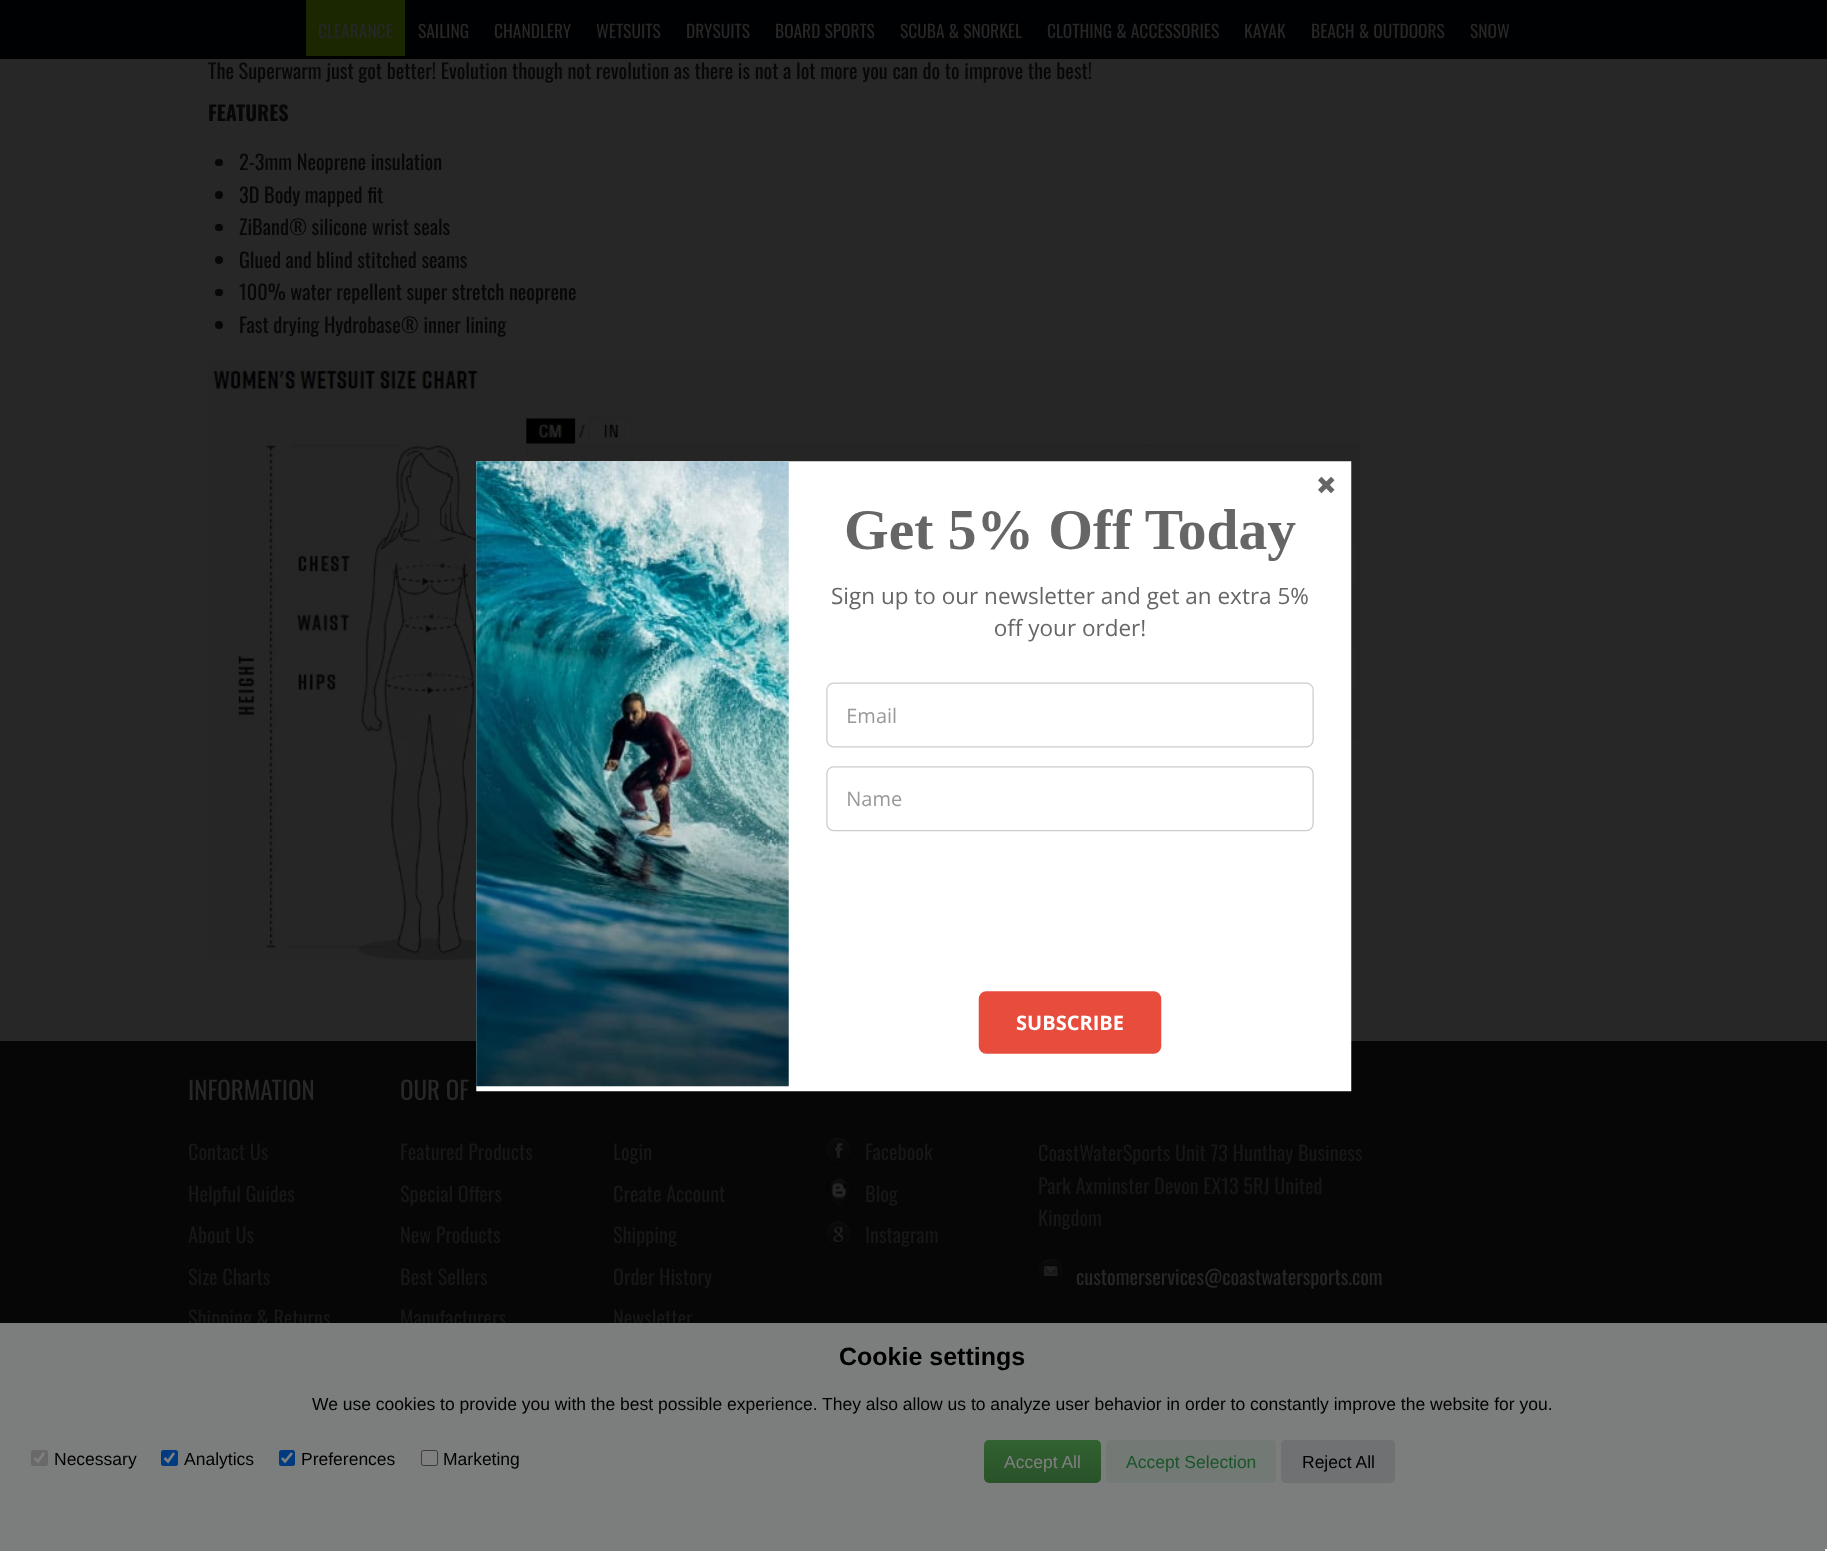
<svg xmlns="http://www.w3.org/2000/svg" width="1827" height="1551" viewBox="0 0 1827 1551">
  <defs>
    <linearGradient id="g1" gradientUnits="userSpaceOnUse" x1="1043" y1="1440" x2="1043" y2="1483"><stop offset="0" stop-color="rgb(49,98,49)"/><stop offset="1" stop-color="rgb(41,82,41)"/></linearGradient>
  </defs>
  <rect width="100%" height="100%" fill="rgb(39,39,39)"/>
  <rect x="0" y="0" width="1827" height="59" fill="rgb(0,1,2)"/>
  <rect x="306" y="0" width="99" height="56" fill="rgb(26,39,0)"/>
  <g font-family="Oswald" font-size="17.5" fill="rgb(39,39,39)">
    <text x="318" y="38">CLEARANCE</text>
    <text x="418" y="38">SAILING</text>
    <text x="494" y="38">CHANDLERY</text>
    <text x="596" y="38">WETSUITS</text>
    <text x="686" y="38">DRYSUITS</text>
    <text x="775" y="38">BOARD SPORTS</text>
    <text x="900" y="38">SCUBA &amp; SNORKEL</text>
    <text x="1047" y="38">CLOTHING &amp; ACCESSORIES</text>
    <text x="1244" y="38">KAYAK</text>
    <text x="1311" y="38">BEACH &amp; OUTDOORS</text>
    <text x="1470" y="38">SNOW</text>
  </g>
  <text x="208" y="79" font-family="Oswald" font-size="20.3" fill="rgb(7,7,7)">The Superwarm just got better! Evolution though not revolution as there is not a lot more you can do to improve the best!</text>
  <text x="208" y="121" font-family="Oswald" font-size="20.3" font-weight="bold" fill="rgb(7,7,7)">FEATURES</text>
  <rect x="215" y="159" width="8" height="7" rx="3.5" fill="rgb(7,7,7)"/>
  <text x="239" y="170" font-family="Oswald" font-size="20.3" fill="rgb(7,7,7)">2-3mm Neoprene insulation</text>
  <circle cx="219" cy="195" r="4" fill="rgb(7,7,7)"/>
  <text x="239" y="203" font-family="Oswald" font-size="20.3" fill="rgb(7,7,7)">3D Body mapped fit</text>
  <rect x="215" y="224" width="8" height="7" rx="3.5" fill="rgb(7,7,7)"/>
  <text x="239" y="235" font-family="Oswald" font-size="20.3" fill="rgb(7,7,7)">ZiBand® silicone wrist seals</text>
  <circle cx="219" cy="260" r="4" fill="rgb(7,7,7)"/>
  <text x="239" y="268" font-family="Oswald" font-size="20.3" fill="rgb(7,7,7)">Glued and blind stitched seams</text>
  <rect x="215" y="289" width="8" height="7" rx="3.5" fill="rgb(7,7,7)"/>
  <text x="239" y="300" font-family="Oswald" font-size="20.3" fill="rgb(7,7,7)">100% water repellent super stretch neoprene</text>
  <circle cx="219" cy="325" r="4" fill="rgb(7,7,7)"/>
  <text x="239" y="333" font-family="Oswald" font-size="20.3" fill="rgb(7,7,7)">Fast drying Hydrobase® inner lining</text>
  <image x="207" y="359" width="1153" height="602" href="pic1.png"/>
  <rect x="0" y="1041" width="1827" height="282" fill="rgb(6,6,6)"/>
  <text x="188" y="1100" font-family="Oswald" font-size="25" fill="rgb(39,39,39)">INFORMATION</text>
  <g font-family="Oswald" font-size="20.3" fill="rgb(23,23,23)">
    <text x="188" y="1160">Contact Us</text>
    <text x="188" y="1202">Helpful Guides</text>
    <text x="188" y="1243">About Us</text>
    <text x="188" y="1285">Size Charts</text>
    <text x="188" y="1326">Shipping &amp; Returns</text>
  </g>
  <text x="400" y="1100" font-family="Oswald" font-size="25" fill="rgb(39,39,39)">OUR OF</text>
  <g font-family="Oswald" font-size="20.3" fill="rgb(23,23,23)">
    <text x="400" y="1160">Featured Products</text>
    <text x="400" y="1202">Special Offers</text>
    <text x="400" y="1243">New Products</text>
    <text x="400" y="1285">Best Sellers</text>
    <text x="400" y="1326">Manufacturers</text>
    <text x="613" y="1160">Login</text>
    <text x="613" y="1202">Create Account</text>
    <text x="613" y="1243">Shipping</text>
    <text x="613" y="1285">Order History</text>
    <text x="613" y="1326">Newsletter</text>
  </g>
  <image x="825" y="1137" width="26" height="27" href="pic2.png"/>
  <text x="865" y="1160" font-family="Oswald" font-size="20.3" fill="rgb(23,23,23)">Facebook</text>
  <image x="825" y="1178" width="28" height="27" href="pic3.png"/>
  <text x="865" y="1202" font-family="Oswald" font-size="20.3" fill="rgb(23,23,23)">Blog</text>
  <image x="825" y="1221" width="26" height="26" href="pic4.png"/>
  <g font-family="Oswald" font-size="20.3" fill="rgb(23,23,23)">
    <text x="865" y="1243">Instagram</text>
    <text>
      <tspan x="1038" y="1161">CoastWaterSports Unit 73 Hunthay Business</tspan>
      <tspan x="1038" y="1194">Park Axminster Devon EX13 5RJ United</tspan>
      <tspan x="1038" y="1226">Kingdom</tspan>
    </text>
  </g>
  <image x="1037" y="1258" width="27" height="27" href="pic5.png"/>
  <text x="1076" y="1285" font-family="Oswald" font-size="20.3" fill="rgb(39,39,39)">customerservices@coastwatersports.com</text>
  <rect x="0" y="1323" width="1827" height="228" fill="rgb(124,125,125)"/>
  <text x="839" y="1365" font-family="Liberation Sans" font-size="25" font-weight="bold" fill="rgb(0,0,0)">Cookie settings</text>
  <text x="312" y="1410" font-family="Liberation Sans" font-size="17.5" fill="rgb(0,0,0)">We use cookies to provide you with the best possible experience. They also allow us to analyze user behavior in order to constantly improve the website for you.</text>
  <rect x="31" y="1450" width="17" height="16" rx="2.5" fill="rgb(105,105,105)"/>
  <path d="M34.5 1458L38 1461.5L44 1453" fill="none" stroke="rgb(128,128,128)" stroke-width="2.6"/>
  <text x="54" y="1465" font-family="Liberation Sans" font-size="17.5" fill="rgb(0,0,0)">Necessary</text>
  <rect x="161" y="1450" width="17" height="16" rx="2.5" fill="rgb(0,59,128)"/>
  <path d="M164.5 1458L168 1461.5L174 1453" fill="none" stroke="rgb(128,128,128)" stroke-width="2.6"/>
  <text x="184" y="1465" font-family="Liberation Sans" font-size="17.5" fill="rgb(0,0,0)">Analytics</text>
  <rect x="279" y="1450" width="16" height="16" rx="2.5" fill="rgb(0,59,128)"/>
  <path d="M282 1458L285 1461.5L292 1453" fill="none" stroke="rgb(128,128,128)" stroke-width="2.6"/>
  <text x="301" y="1465" font-family="Liberation Sans" font-size="17.5" fill="rgb(0,0,0)">Preferences</text>
  <rect x="421.5" y="1450.5" width="16" height="15" rx="2" fill="rgb(128,128,128)" stroke="rgb(59,59,59)"/>
  <text x="443" y="1465" font-family="Liberation Sans" font-size="17.5" fill="rgb(0,0,0)">Marketing</text>
  <rect x="984" y="1440" width="117" height="43" rx="5" fill="url(#g1)"/>
  <text x="1004" y="1468" font-family="Liberation Sans" font-size="17.5" fill="rgb(128,128,128)">Accept All</text>
  <rect x="1106" y="1440" width="170" height="43" rx="5" fill="rgb(115,122,117)"/>
  <text x="1126" y="1468" font-family="Liberation Sans" font-size="17.5" fill="rgb(26,84,42)">Accept Selection</text>
  <rect x="1281" y="1440" width="114" height="43" rx="5" fill="rgb(112,113,115)"/>
  <text x="1302" y="1468" font-family="Liberation Sans" font-size="17.5" fill="rgb(0,0,0)">Reject All</text>
  <image x="476" y="461" width="876" height="631" href="pic6.png"/>
  <rect x="1825" y="1549" width="2" height="2" fill="rgb(245,245,245)"/>
</svg>
